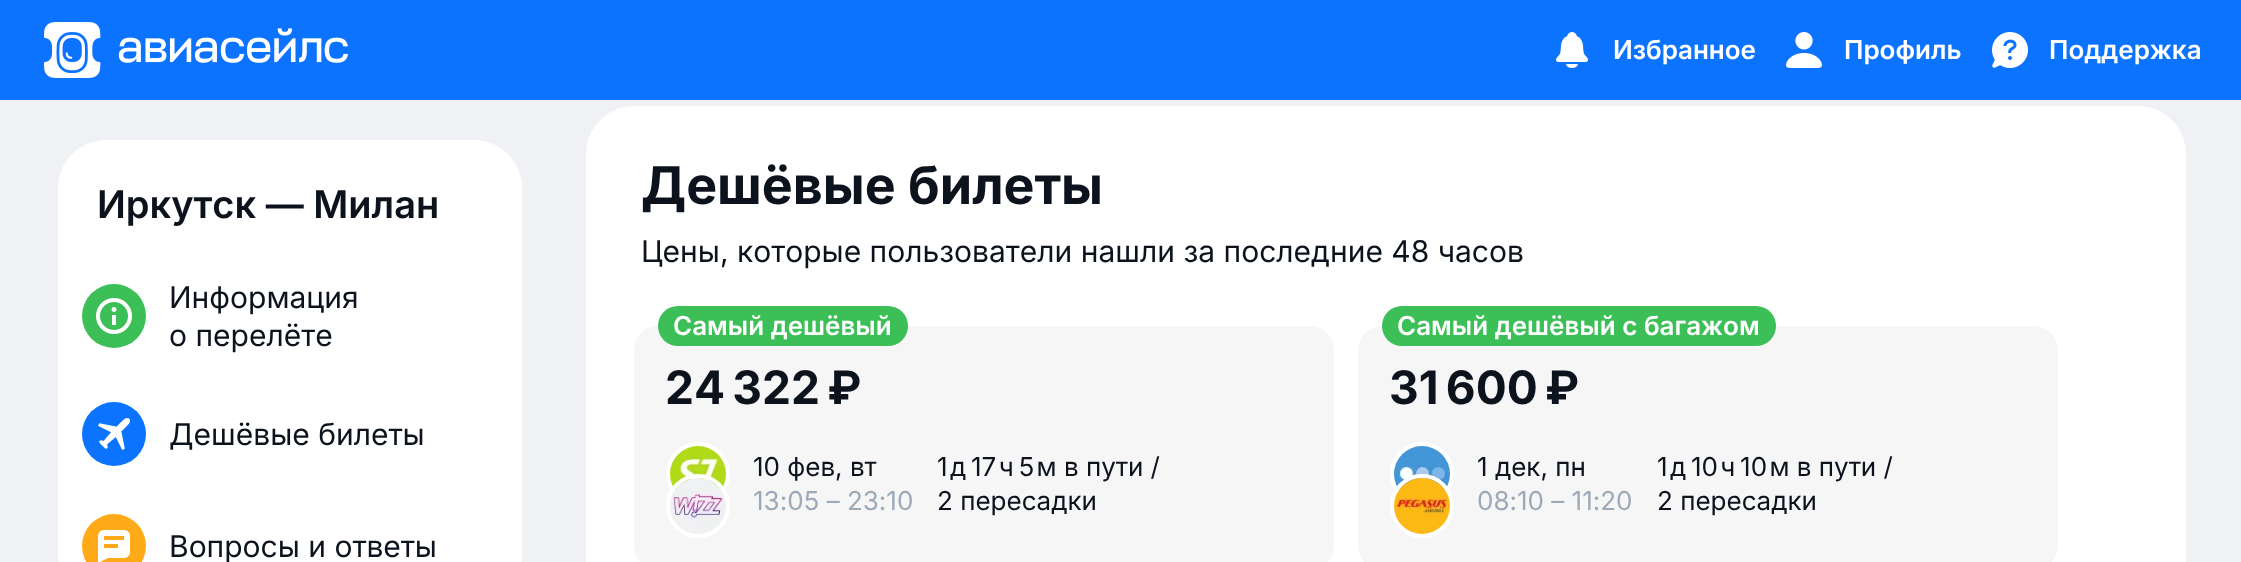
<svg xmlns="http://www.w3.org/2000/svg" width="2241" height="562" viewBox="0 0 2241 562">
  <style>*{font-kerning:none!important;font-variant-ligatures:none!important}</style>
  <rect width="100%" height="100%" fill="rgb(239,241,244)"/>
  <rect x="0" y="0" width="2241" height="100" fill="rgb(12,115,254)"/>
  <image x="44" y="22" width="304" height="56" href="pic1.png"/>
  <image x="1556" y="32" width="32" height="36" href="pic2.png"/>
  <text x="1613" y="59" font-family="Inter" font-size="26" font-weight="600" fill="rgb(255,255,255)">Избранное</text>
  <image x="1786" y="32" width="36" height="36" href="pic3.png"/>
  <text x="1844" y="59" font-family="Inter" font-size="26" font-weight="600" fill="rgb(255,255,255)">Профиль</text>
  <image x="1992" y="32" width="36" height="36" href="pic4.png"/>
  <text x="2049" y="59" font-family="Inter" font-size="26" font-weight="600" fill="rgb(255,255,255)">Поддержка</text>
  <rect x="58" y="140" width="464" height="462" rx="48" fill="rgb(255,255,255)"/>
  <text x="97" y="218" font-family="Inter" font-size="38" font-weight="600" fill="rgb(12,19,29)">Иркутск — Милан</text>
  <circle cx="114" cy="316" r="32" fill="rgb(59,191,86)"/>
  <image x="96" y="298" width="36" height="36" href="pic5.png"/>
  <g font-family="Inter" font-size="30" fill="rgb(12,19,29)">
    <text>
      <tspan x="169" y="308">Информация</tspan>
      <tspan x="169" y="346">о перелёте</tspan>
    </text>
  </g>
  <circle cx="114" cy="434" r="32" fill="rgb(12,115,254)"/>
  <image x="98" y="418" width="32" height="32" href="pic6.png"/>
  <text x="169" y="445" font-family="Inter" font-size="30" fill="rgb(12,19,29)">Дешёвые билеты</text>
  <circle cx="114" cy="546" r="32" fill="rgb(255,170,24)"/>
  <image x="98" y="530" width="32" height="32" href="pic7.png"/>
  <text x="169" y="557" font-family="Inter" font-size="30" fill="rgb(12,19,29)">Вопросы и ответы</text>
  <rect x="586" y="106" width="1600" height="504" rx="48" fill="rgb(255,255,255)"/>
  <text x="641" y="204" font-family="Inter" font-size="52" font-weight="bold" fill="rgb(12,19,29)">Дешёвые билеты</text>
  <text x="641" y="262" font-family="Inter" font-size="30" fill="rgb(12,19,29)">Цены, которые пользователи нашли за последние 48 часов</text>
  <rect x="634" y="326" width="700" height="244" rx="24" fill="rgb(246,246,247)"/>
  <rect x="658" y="306" width="250" height="40" rx="20" fill="rgb(59,191,86)"/>
  <text x="673" y="335" font-family="Inter" font-size="26" font-weight="600" fill="rgb(255,255,255)">Самый дешёвый</text>
  <text x="665" y="404" font-family="Inter" font-size="46" font-weight="bold" fill="rgb(12,19,29)">24 322 ₽</text>
  <circle cx="698" cy="474" r="30" fill="none" stroke="rgb(255,255,255)" stroke-width="4"/>
  <image x="670" y="446" width="56" height="45" href="pic8.png"/>
  <circle cx="698" cy="506" r="30" fill="none" stroke="rgb(255,255,255)" stroke-width="4"/>
  <image x="670" y="478" width="56" height="56" href="pic9.png"/>
  <text x="753" y="476" font-family="Inter" font-size="26" fill="rgb(12,19,29)">10 фев, вт</text>
  <text x="753" y="510" font-family="Inter" font-size="26" fill="rgb(158,169,183)">13:05 – 23:10</text>
  <g font-family="Inter" font-size="26" fill="rgb(12,19,29)">
    <text>
      <tspan x="937" y="476">1 д 17 ч 5 м в пути /</tspan>
      <tspan x="937" y="510">2 пересадки</tspan>
    </text>
  </g>
  <rect x="1358" y="326" width="700" height="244" rx="24" fill="rgb(246,246,247)"/>
  <rect x="1382" y="306" width="394" height="40" rx="20" fill="rgb(59,191,86)"/>
  <text x="1397" y="335" font-family="Inter" font-size="26" font-weight="600" fill="rgb(255,255,255)">Самый дешёвый с багажом</text>
  <text x="1389" y="404" font-family="Inter" font-size="46" font-weight="bold" fill="rgb(12,19,29)">31 600 ₽</text>
  <circle cx="1422" cy="474" r="30" fill="none" stroke="rgb(255,255,255)" stroke-width="4"/>
  <image x="1394" y="446" width="56" height="45" href="pic10.png"/>
  <circle cx="1422" cy="506" r="30" fill="none" stroke="rgb(255,255,255)" stroke-width="4"/>
  <image x="1394" y="478" width="56" height="56" href="pic11.png"/>
  <text x="1477" y="476" font-family="Inter" font-size="26" fill="rgb(12,19,29)">1 дек, пн</text>
  <text x="1477" y="510" font-family="Inter" font-size="26" fill="rgb(158,169,183)">08:10 – 11:20</text>
  <g font-family="Inter" font-size="26" fill="rgb(12,19,29)">
    <text>
      <tspan x="1657" y="476">1 д 10 ч 10 м в пути /</tspan>
      <tspan x="1657" y="510">2 пересадки</tspan>
    </text>
  </g>
</svg>
